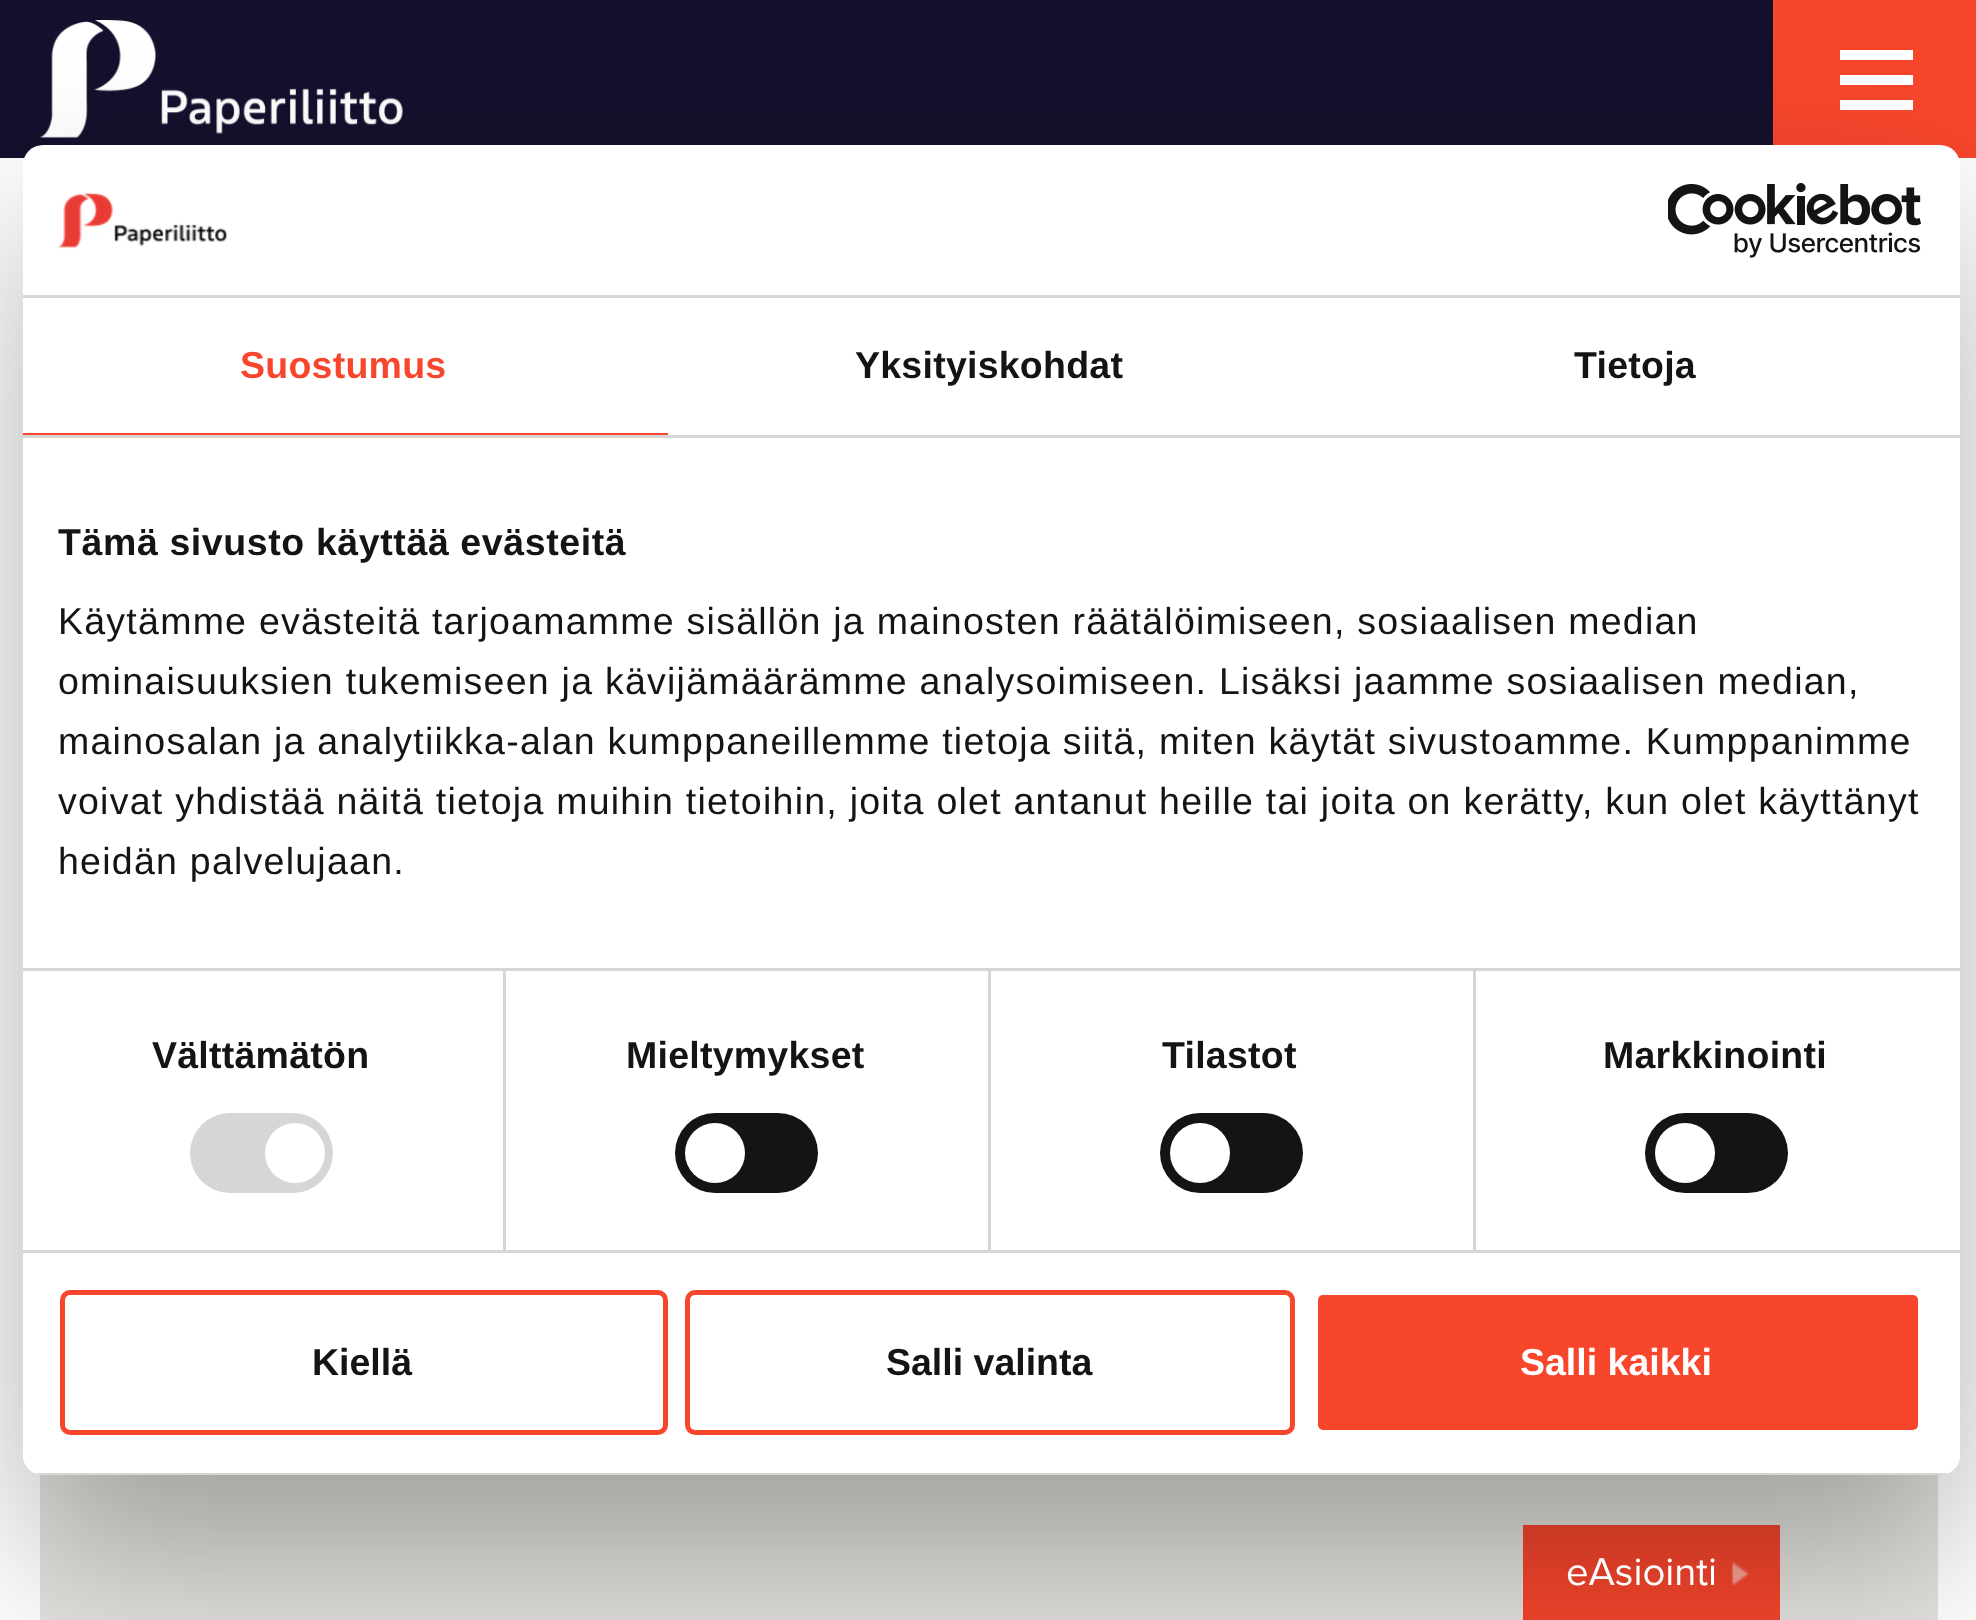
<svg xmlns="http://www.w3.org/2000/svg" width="1976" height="1620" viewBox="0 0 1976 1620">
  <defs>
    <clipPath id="clip1"><path d="M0 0H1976V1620H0ZM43 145H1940C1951 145 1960 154 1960 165V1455C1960 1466 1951 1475 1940 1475H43C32 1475 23 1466 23 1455V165C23 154 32 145 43 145Z" clip-rule="evenodd"/></clipPath>
    <clipPath id="clip2"><rect x="23" y="145" width="1937" height="1330" rx="20"/></clipPath>
  </defs>
  <rect width="100%" height="100%" fill="rgb(255,255,255)"/>
  <rect x="0" y="0" width="1773" height="158" fill="rgb(19,17,45)"/>
  <image x="40" y="20" width="363" height="118" href="pic1.png"/>
  <rect x="1773" y="0" width="203" height="158" fill="rgb(248,70,45)"/>
  <rect x="1840" y="50" width="73" height="10" fill="rgb(255,255,255)"/>
  <rect x="1840" y="75" width="73" height="10" fill="rgb(255,255,255)"/>
  <rect x="1840" y="100" width="73" height="10" fill="rgb(255,255,255)"/>
  <rect x="40" y="1474" width="1898" height="146" fill="rgb(229,227,223)"/>
  <rect x="1523" y="1525" width="257" height="95" fill="rgb(248,70,45)"/>
  <image x="1731" y="1562" width="19" height="24" href="pic4.png"/>
  <g clip-path="url(#clip1)">
    <rect x="23" y="225" width="1937" height="1330" rx="20" fill="rgba(0,0,0,0.3)" filter="blur(85px)"/>
  </g>
  <rect x="23" y="145" width="1937" height="1330" rx="20" fill="rgb(255,255,255)"/>
  <rect x="23" y="295" width="1937" height="3" fill="rgb(214,214,214)"/>
  <image x="58" y="192" width="169" height="57" href="pic2.png"/>
  <image x="1668" y="183" width="253" height="75" href="pic3.png"/>
  <rect x="23" y="435" width="1937" height="3" fill="rgb(214,214,214)"/>
  <rect x="23" y="433" width="645" height="2" fill="rgb(248,70,45)"/>
  <text x="240" y="378" font-family="Liberation Sans" font-size="37.5" font-weight="bold" letter-spacing="0.25" fill="rgb(248,70,45)">Suostumus</text>
  <g font-family="Liberation Sans" font-size="37.5" font-weight="bold" letter-spacing="0.25" fill="rgb(20,20,20)">
    <text x="855" y="378">Yksityiskohdat</text>
    <text x="1574" y="378">Tietoja</text>
  </g>
  <rect x="503" y="970" width="3" height="280" fill="rgb(214,214,214)"/>
  <rect x="988" y="970" width="3" height="280" fill="rgb(214,214,214)"/>
  <rect x="1473" y="970" width="3" height="280" fill="rgb(214,214,214)"/>
  <rect x="23" y="968" width="1937" height="3" fill="rgb(214,214,214)"/>
  <text x="58" y="555" font-family="Liberation Sans" font-size="37.5" font-weight="bold" letter-spacing="0.6" fill="rgb(20,20,20)">Tämä sivusto käyttää evästeitä</text>
  <g font-family="Liberation Sans" font-size="37.5" letter-spacing="1.25" fill="rgb(20,20,20)">
    <text>
      <tspan x="58" y="634">Käytämme evästeitä tarjoamamme sisällön ja mainosten räätälöimiseen, sosiaalisen median</tspan>
      <tspan x="58" y="694">ominaisuuksien tukemiseen ja kävijämäärämme analysoimiseen. Lisäksi jaamme sosiaalisen median,</tspan>
      <tspan x="58" y="754">mainosalan ja analytiikka-alan kumppaneillemme tietoja siitä, miten käytät sivustoamme. Kumppanimme</tspan>
      <tspan x="58" y="814">voivat yhdistää näitä tietoja muihin tietoihin, joita olet antanut heille tai joita on kerätty, kun olet käyttänyt</tspan>
      <tspan x="58" y="874">heidän palvelujaan.</tspan>
    </text>
  </g>
  <rect x="23" y="1250" width="1937" height="3" fill="rgb(214,214,214)"/>
  <text x="152" y="1068" font-family="Liberation Sans" font-size="37.5" font-weight="bold" letter-spacing="0.25" fill="rgb(20,20,20)">Välttämätön</text>
  <rect x="190" y="1113" width="143" height="80" rx="40" fill="rgb(214,214,214)"/>
  <circle cx="295" cy="1153" r="30" fill="rgb(255,255,255)"/>
  <text x="626" y="1068" font-family="Liberation Sans" font-size="37.5" font-weight="bold" letter-spacing="0.25" fill="rgb(20,20,20)">Mieltymykset</text>
  <rect x="675" y="1113" width="143" height="80" rx="40" fill="rgb(20,20,20)"/>
  <circle cx="715" cy="1153" r="30" fill="rgb(255,255,255)"/>
  <text x="1162" y="1068" font-family="Liberation Sans" font-size="37.5" font-weight="bold" letter-spacing="0.25" fill="rgb(20,20,20)">Tilastot</text>
  <rect x="1160" y="1113" width="143" height="80" rx="40" fill="rgb(20,20,20)"/>
  <circle cx="1200" cy="1153" r="30" fill="rgb(255,255,255)"/>
  <text x="1603" y="1068" font-family="Liberation Sans" font-size="37.5" font-weight="bold" letter-spacing="0.25" fill="rgb(20,20,20)">Markkinointi</text>
  <rect x="1645" y="1113" width="143" height="80" rx="40" fill="rgb(20,20,20)"/>
  <circle cx="1685" cy="1153" r="30" fill="rgb(255,255,255)"/>
  <g clip-path="url(#clip2)">
    <rect x="34" y="1473" width="1915" height="2" fill="rgb(214,214,214)"/>
  </g>
  <rect x="62.5" y="1292.5" width="603" height="140" rx="7.5" fill="none" stroke="rgb(248,70,45)" stroke-width="5"/>
  <text x="312" y="1375" font-family="Liberation Sans" font-size="37.5" font-weight="bold" fill="rgb(20,20,20)">Kiellä</text>
  <rect x="687.5" y="1292.5" width="605" height="140" rx="7.5" fill="none" stroke="rgb(248,70,45)" stroke-width="5"/>
  <text x="886" y="1375" font-family="Liberation Sans" font-size="37.5" font-weight="bold" fill="rgb(20,20,20)">Salli valinta</text>
  <rect x="1315.5" y="1292.5" width="605" height="140" rx="7.5" fill="rgb(248,70,45)" stroke="rgb(255,255,255)" stroke-width="5"/>
  <text x="1520" y="1375" font-family="Liberation Sans" font-size="37.5" font-weight="bold" fill="rgb(255,255,255)">Salli kaikki</text>
  <text x="1566" y="1585" font-family="Proxima Nova" font-size="40" fill="rgb(255,255,255)">eAsiointi</text>
</svg>
